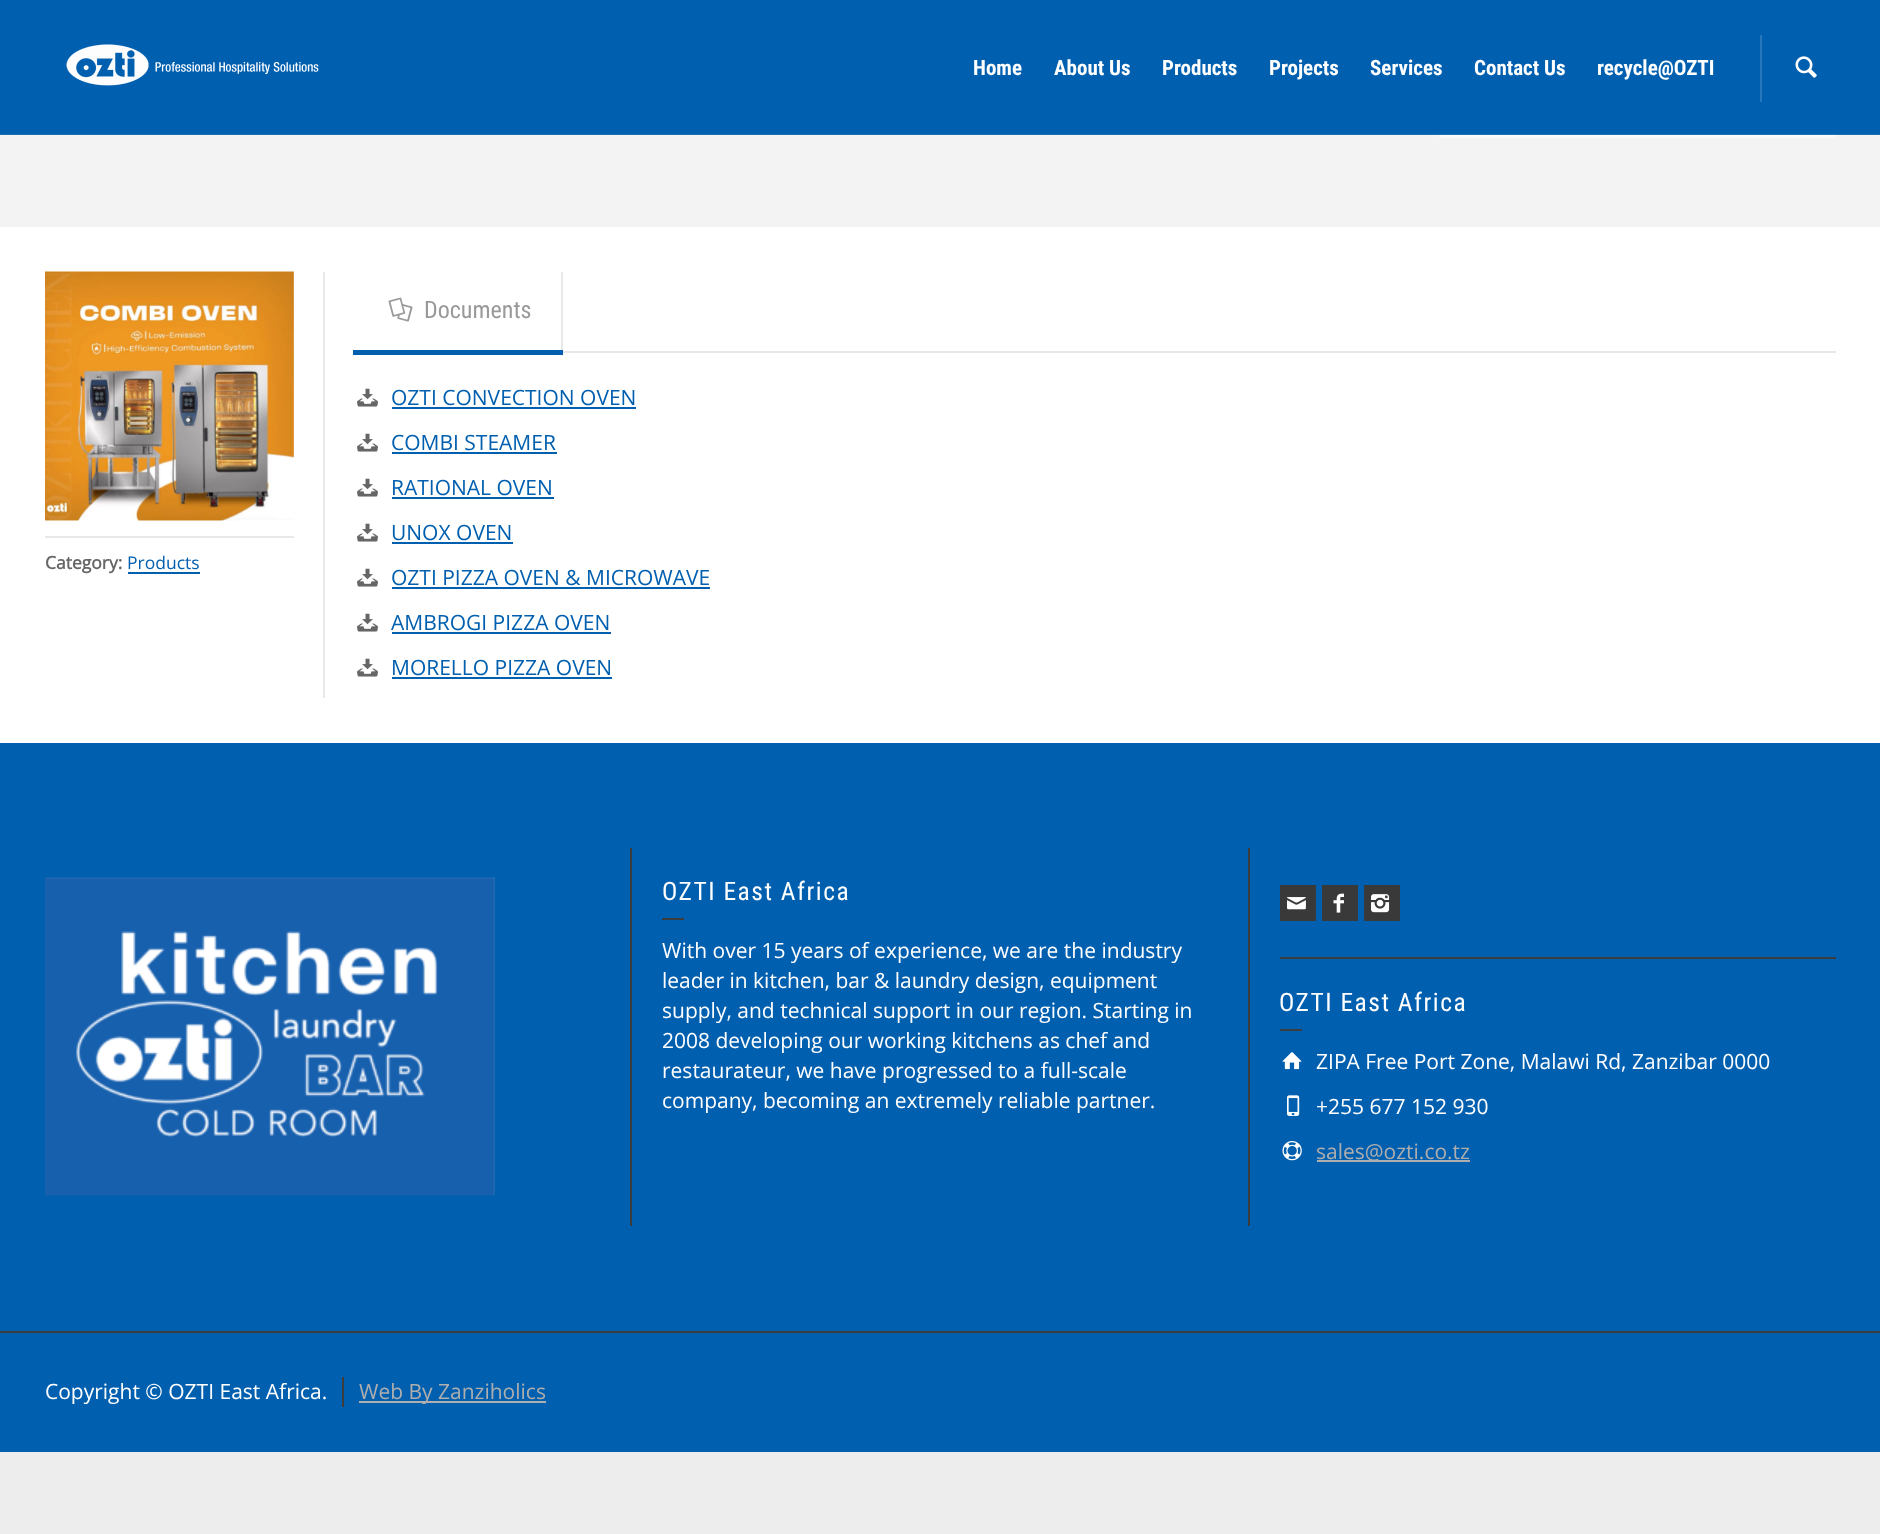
<svg xmlns="http://www.w3.org/2000/svg" width="1880" height="1534" viewBox="0 0 1880 1534">
  <rect width="100%" height="100%" fill="rgb(237,237,237)"/>
  <rect x="0" y="0" width="1880" height="134" fill="rgb(0,95,175)"/>
  <rect x="0" y="134" width="1880" height="1" fill="rgb(26,111,183)"/>
  <image x="66" y="44" width="253" height="42" href="pic1.png"/>
  <g font-family="Roboto Condensed" font-size="21" font-weight="bold" fill="rgb(255,255,255)">
    <text x="973" y="75">Home</text>
    <text x="1054" y="75">About Us</text>
    <text x="1162" y="75">Products</text>
    <text x="1269" y="75">Projects</text>
    <text x="1370" y="75">Services</text>
    <text x="1474" y="75">Contact Us</text>
    <text x="1597" y="75">recycle@OZTI</text>
  </g>
  <rect x="1760" y="35" width="2" height="67" fill="rgb(38,119,187)"/>
  <image x="1795" y="56" width="22" height="22" href="pic2.png"/>
  <rect x="0" y="136" width="1880" height="91" fill="rgb(243,243,243)"/>
  <rect x="0" y="135" width="1880" height="1" fill="rgb(244,244,244)"/>
  <rect x="1439" y="136" width="397" height="2" fill="rgb(249,249,249)"/>
  <rect x="1439" y="135" width="397" height="1" fill="rgb(250,250,250)"/>
  <rect x="0" y="227" width="1880" height="516" fill="rgb(255,255,255)"/>
  <image x="45" y="271" width="249" height="250" href="pic3.png"/>
  <rect x="45" y="536" width="249" height="2" fill="rgb(232,232,232)"/>
  <text x="45" y="569" font-family="Open Sans" font-size="17.5" font-weight="bold" fill="rgb(102,102,102)">Category:</text>
  <text x="127" y="569" font-family="Open Sans" font-size="17.5" fill="rgb(0,95,175)">Products</text>
  <rect x="128" y="572" width="72" height="2" fill="rgb(0,95,175)"/>
  <rect x="323" y="272" width="2" height="426" fill="rgb(232,232,232)"/>
  <rect x="563" y="351" width="1273" height="2" fill="rgb(232,232,232)"/>
  <rect x="561" y="272" width="2" height="79" fill="rgb(232,232,232)"/>
  <image x="388" y="297" width="25" height="25" href="pic4.png"/>
  <text x="424" y="318" font-family="Roboto Condensed" font-size="24" fill="rgb(153,153,153)">Documents</text>
  <rect x="353" y="350" width="210" height="5" fill="rgb(0,95,175)"/>
  <image x="357" y="388" width="21" height="19" href="pic5.png"/>
  <text x="391" y="405" font-family="Open Sans" font-size="21" fill="rgb(0,95,175)">OZTI CONVECTION OVEN</text>
  <rect x="392" y="407" width="244" height="2" fill="rgb(0,95,175)"/>
  <image x="357" y="433" width="21" height="19" href="pic5.png"/>
  <text x="391" y="450" font-family="Open Sans" font-size="21" fill="rgb(0,95,175)">COMBI STEAMER</text>
  <rect x="392" y="452" width="165" height="2" fill="rgb(0,95,175)"/>
  <image x="357" y="478" width="21" height="19" href="pic5.png"/>
  <text x="391" y="495" font-family="Open Sans" font-size="21" fill="rgb(0,95,175)">RATIONAL OVEN</text>
  <rect x="392" y="497" width="162" height="2" fill="rgb(0,95,175)"/>
  <image x="357" y="523" width="21" height="19" href="pic5.png"/>
  <text x="391" y="540" font-family="Open Sans" font-size="21" fill="rgb(0,95,175)">UNOX OVEN</text>
  <rect x="392" y="542" width="121" height="2" fill="rgb(0,95,175)"/>
  <image x="357" y="568" width="21" height="19" href="pic5.png"/>
  <text x="391" y="585" font-family="Open Sans" font-size="21" fill="rgb(0,95,175)">OZTI PIZZA OVEN &amp; MICROWAVE</text>
  <rect x="392" y="587" width="318" height="2" fill="rgb(0,95,175)"/>
  <image x="357" y="613" width="21" height="19" href="pic5.png"/>
  <text x="391" y="630" font-family="Open Sans" font-size="21" fill="rgb(0,95,175)">AMBROGI PIZZA OVEN</text>
  <rect x="392" y="632" width="219" height="2" fill="rgb(0,95,175)"/>
  <image x="357" y="658" width="21" height="19" href="pic5.png"/>
  <text x="391" y="675" font-family="Open Sans" font-size="21" fill="rgb(0,95,175)">MORELLO PIZZA OVEN</text>
  <rect x="392" y="677" width="220" height="2" fill="rgb(0,95,175)"/>
  <rect x="0" y="743" width="1880" height="588" fill="rgb(0,95,175)"/>
  <image x="45" y="877" width="450" height="319" href="pic6.png"/>
  <rect x="630" y="848" width="2" height="378" fill="rgb(60,60,60)"/>
  <text x="662" y="900" font-family="Roboto Condensed" font-size="25.5" letter-spacing="1.5" fill="rgb(255,255,255)">OZTI East Africa</text>
  <rect x="662" y="918" width="22" height="2" fill="rgb(60,60,60)"/>
  <g font-family="Open Sans" font-size="21" fill="rgb(255,255,255)">
    <text>
      <tspan x="662" y="958">With over 15 years of experience, we are the industry</tspan>
      <tspan x="662" y="988">leader in kitchen, bar &amp; laundry design, equipment</tspan>
      <tspan x="662" y="1018">supply, and technical support in our region. Starting in</tspan>
      <tspan x="662" y="1048">2008 developing our working kitchens as chef and</tspan>
      <tspan x="662" y="1078">restaurateur, we have progressed to a full-scale</tspan>
      <tspan x="662" y="1108">company, becoming an extremely reliable partner.</tspan>
    </text>
  </g>
  <rect x="1248" y="848" width="2" height="378" fill="rgb(60,60,60)"/>
  <rect x="1280" y="885" width="36" height="36" fill="rgb(57,57,57)"/>
  <image x="1287" y="897" width="19" height="13" href="pic7.png"/>
  <rect x="1322" y="885" width="36" height="36" fill="rgb(57,57,57)"/>
  <image x="1333" y="893" width="11" height="20" href="pic8.png"/>
  <rect x="1364" y="885" width="36" height="36" fill="rgb(57,57,57)"/>
  <image x="1371" y="894" width="19" height="19" href="pic9.png"/>
  <rect x="1280" y="957" width="556" height="2" fill="rgb(60,60,60)"/>
  <text x="1279" y="1011" font-family="Roboto Condensed" font-size="25.5" letter-spacing="1.5" fill="rgb(255,255,255)">OZTI East Africa</text>
  <rect x="1280" y="1029" width="22" height="2" fill="rgb(60,60,60)"/>
  <image x="1282" y="1052" width="20" height="18" href="pic10.png"/>
  <text x="1316" y="1069" font-family="Open Sans" font-size="21" fill="rgb(255,255,255)">ZIPA Free Port Zone, Malawi Rd, Zanzibar 0000</text>
  <image x="1287" y="1095" width="13" height="21" href="pic11.png"/>
  <text x="1316" y="1114" font-family="Open Sans" font-size="21" fill="rgb(255,255,255)">+255 677 152 930</text>
  <image x="1282" y="1141" width="20" height="20" href="pic12.png"/>
  <rect x="1317" y="1160" width="153" height="2" fill="rgb(174,174,174)"/>
  <text x="1316" y="1159" font-family="Open Sans" font-size="21" fill="rgb(174,174,174)">sales@ozti.co.tz</text>
  <rect x="0" y="1333" width="1880" height="119" fill="rgb(0,95,175)"/>
  <rect x="0" y="1331" width="1880" height="2" fill="rgb(60,60,60)"/>
  <text x="45" y="1399" font-family="Open Sans" font-size="21" fill="rgb(255,255,255)">Copyright © OZTI East Africa.</text>
  <rect x="342" y="1377" width="2" height="30" fill="rgb(60,60,60)"/>
  <rect x="359" y="1401" width="187" height="2" fill="rgb(174,174,174)"/>
  <text x="359" y="1399" font-family="Open Sans" font-size="21" fill="rgb(174,174,174)">Web By Zanziholics</text>
</svg>
